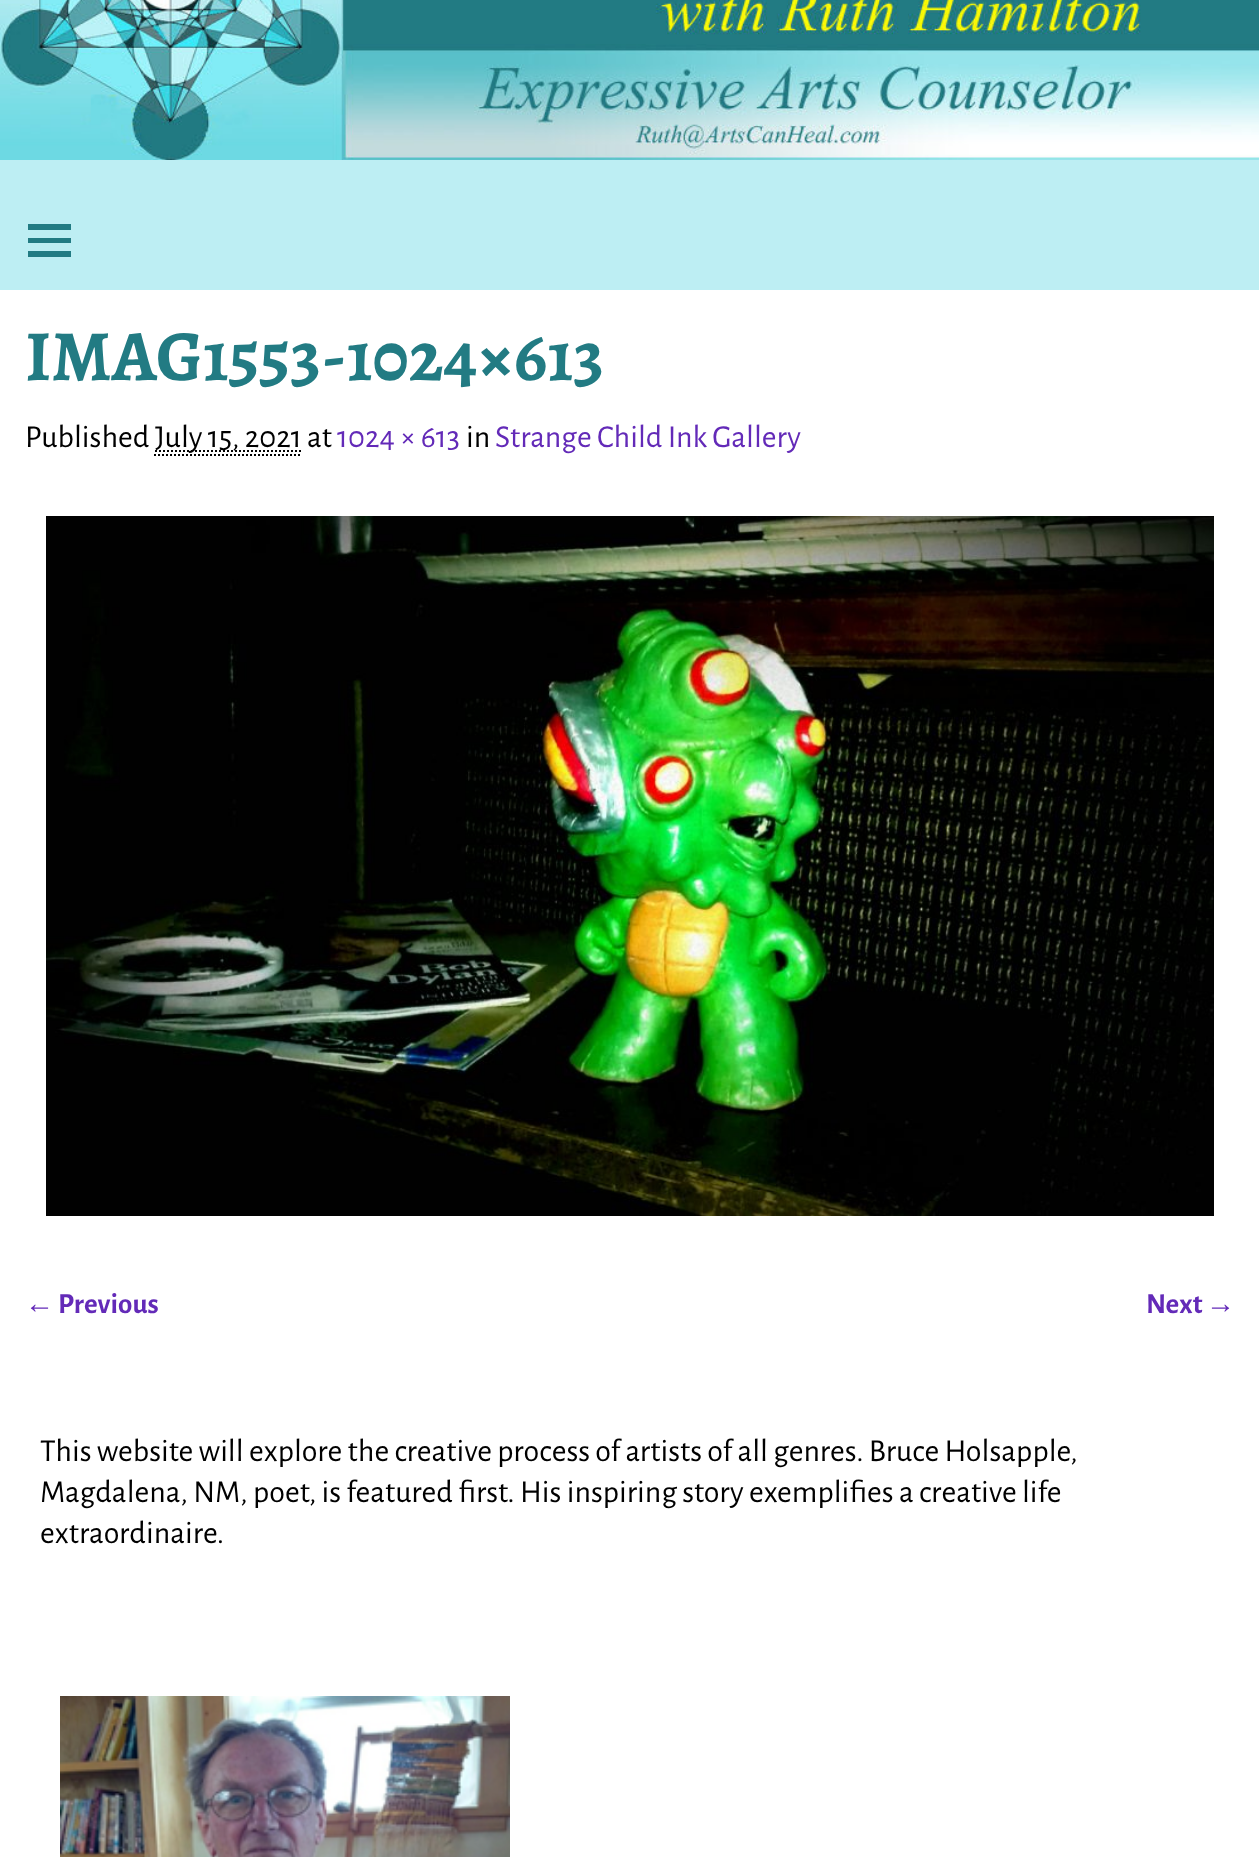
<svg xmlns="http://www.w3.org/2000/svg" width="1259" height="1857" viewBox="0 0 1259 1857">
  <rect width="100%" height="100%" fill="rgb(255,255,255)"/>
  <image x="0" y="0" width="1259" height="160" href="pic1.png"/>
  <rect x="0" y="160" width="1259" height="130" fill="rgb(189,238,243)"/>
  <path d="M28 257V251H71V257ZM28 224H71V230H28ZM28 243V238H71V243Z" fill="rgb(34,123,131)"/>
  <text x="25" y="380" font-family="Alegreya" font-size="72" font-weight="bold" fill="rgb(34,123,131)">IMAG1553-1024×613</text>
  <text x="25" y="447" font-family="Alegreya Sans" font-size="32" fill="rgb(0,0,0)">Published</text>
  <path d="M155 451H301.5" fill="none" stroke="rgb(0,0,0)" stroke-width="2" stroke-dasharray="2 2"/>
  <text x="155" y="447" font-family="Alegreya Sans" font-size="32" fill="rgb(0,0,0)">July 15, 2021 at</text>
  <path d="M154 455H302" fill="none" stroke="rgb(0,0,0)" stroke-width="2" stroke-dasharray="2 2"/>
  <text x="337" y="447" font-family="Alegreya Sans" font-size="32" fill="rgb(99,42,184)">1024 × 613</text>
  <text x="466" y="447" font-family="Alegreya Sans" font-size="32" fill="rgb(0,0,0)">in</text>
  <text x="495" y="447" font-family="Alegreya Sans" font-size="32" fill="rgb(99,42,184)">Strange Child Ink Gallery</text>
  <image x="46" y="516" width="1168" height="700" href="pic2.png"/>
  <text x="25" y="1313" font-family="Liberation Sans" font-size="29" font-weight="bold" fill="rgb(99,42,184)">←</text>
  <g font-family="Alegreya Sans" font-size="29" font-weight="bold" fill="rgb(99,42,184)">
    <text x="58" y="1313">Previous</text>
    <text x="1146" y="1313">Next</text>
  </g>
  <text x="1206" y="1313" font-family="Liberation Sans" font-size="29" font-weight="bold" fill="rgb(99,42,184)">→</text>
  <g font-family="Alegreya Sans" font-size="32" fill="rgb(0,0,0)">
    <text>
      <tspan x="40" y="1461">This website will explore the creative process of artists of all genres. Bruce Holsapple,</tspan>
      <tspan x="40" y="1502">Magdalena, NM, poet, is featured first. His inspiring story exemplifies a creative life</tspan>
      <tspan x="40" y="1543">extraordinaire.</tspan>
    </text>
  </g>
  <image x="60" y="1696" width="450" height="161" href="pic3.png"/>
</svg>
